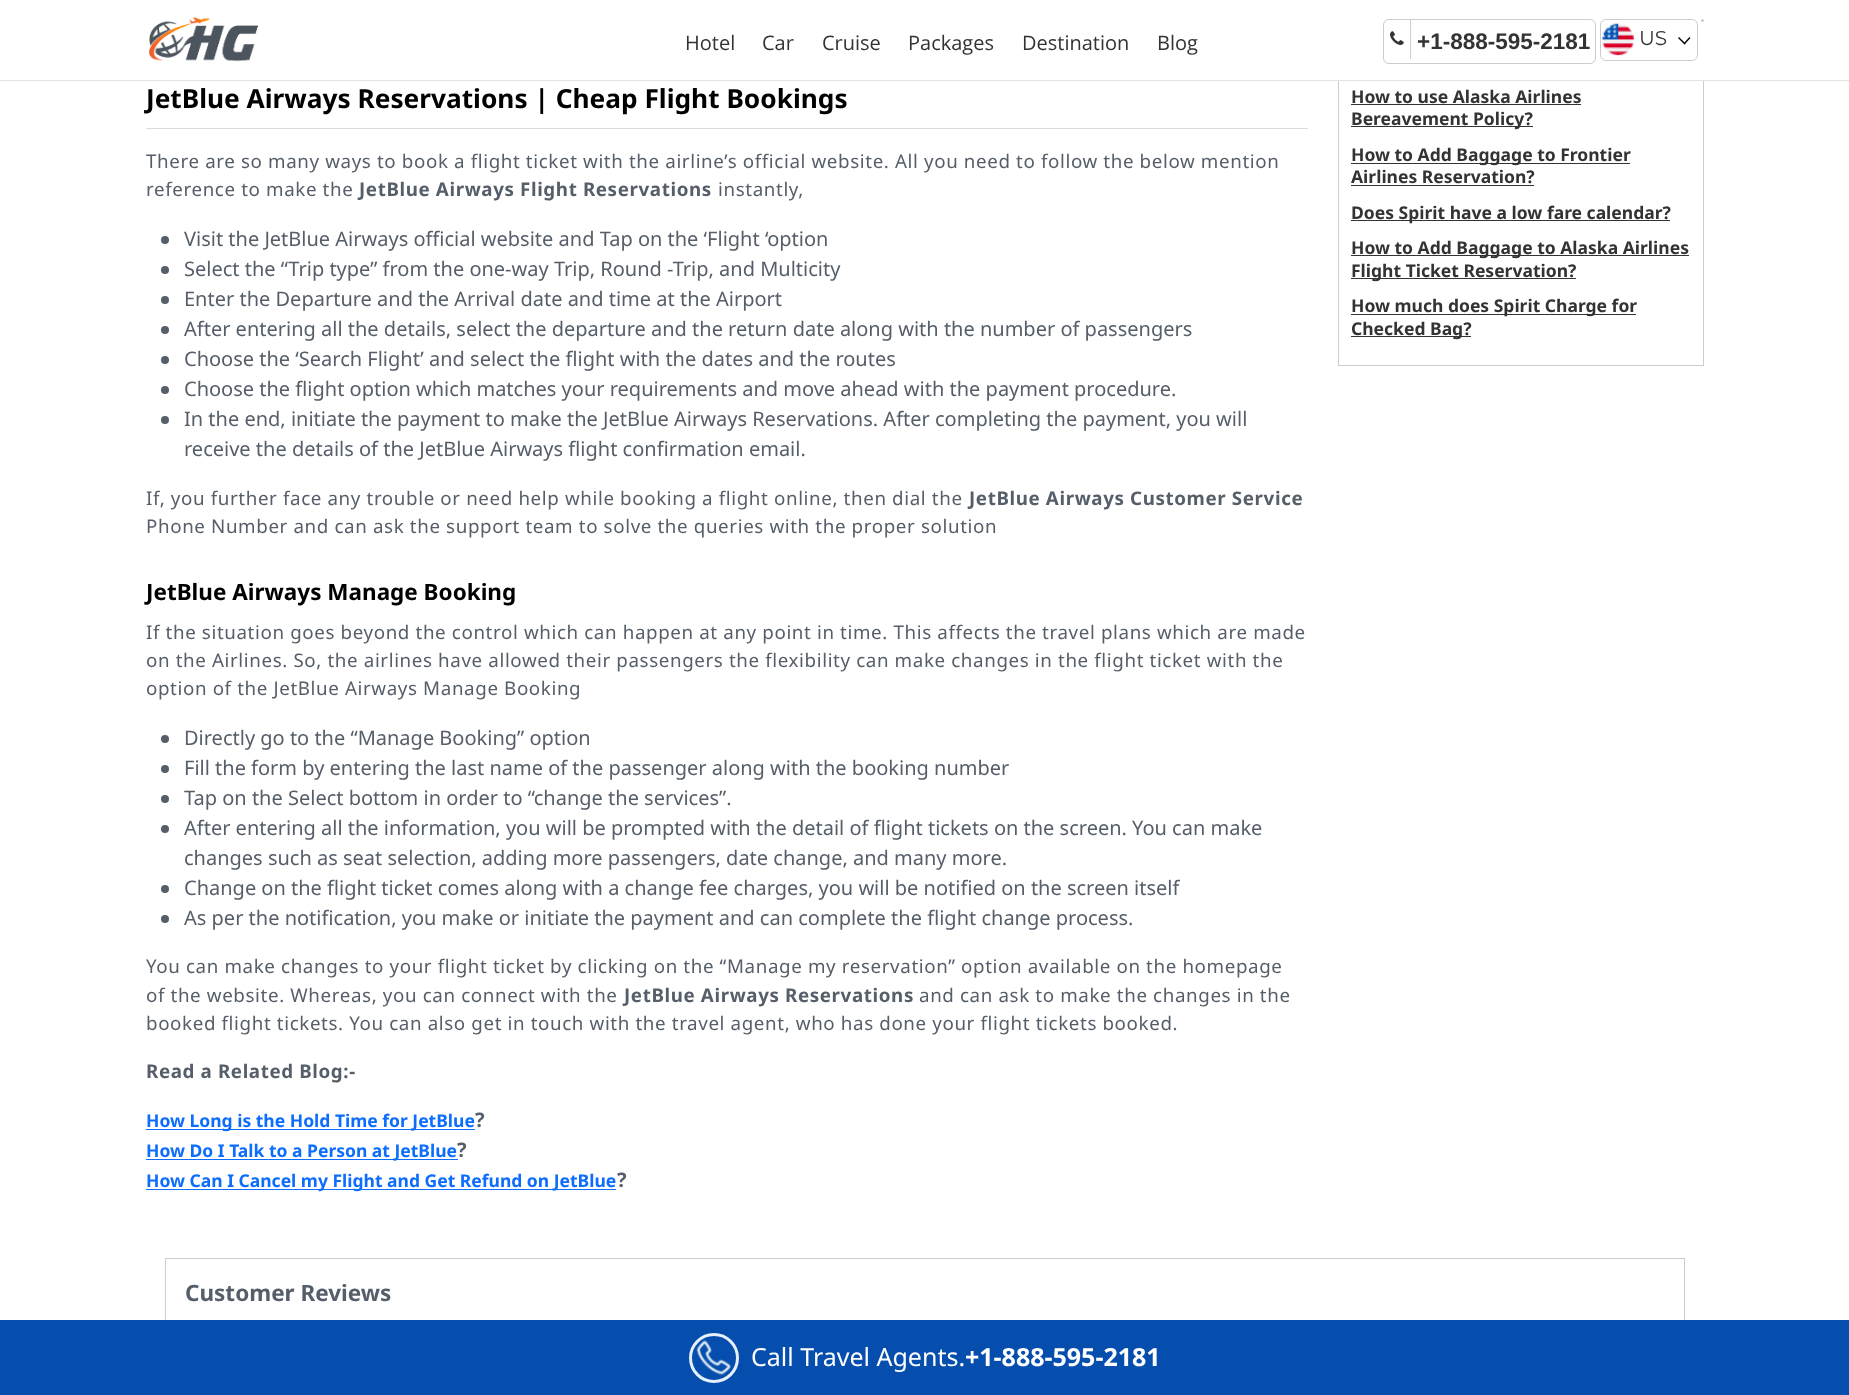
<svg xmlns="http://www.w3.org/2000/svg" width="1849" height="1395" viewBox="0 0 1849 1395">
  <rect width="100%" height="100%" fill="rgb(255,255,255)"/>
  <rect x="0" y="80" width="1849" height="1" fill="rgb(226,226,226)"/>
  <image x="149" y="16" width="109" height="46" href="pic1.png"/>
  <circle cx="1702.5" cy="20.5" r="1.5" fill="rgb(204,204,204)"/>
  <g font-family="Open Sans" font-size="20" fill="rgb(51,51,51)">
    <text x="685" y="50">Hotel</text>
    <text x="762" y="50">Car</text>
    <text x="822" y="50">Cruise</text>
    <text x="908" y="50">Packages</text>
    <text x="1022" y="50">Destination</text>
    <text x="1157" y="50">Blog</text>
  </g>
  <rect x="1383.5" y="19.5" width="212" height="44" rx="5.5" fill="none" stroke="rgb(204,204,204)"/>
  <rect x="1410" y="20" width="1" height="39" fill="rgb(204,204,204)"/>
  <image x="1390" y="31" width="14" height="14" href="pic2.png"/>
  <text x="1417" y="49" font-family="Liberation Sans" font-size="22.5" font-weight="bold" fill="rgb(51,51,51)">+1-888-595-2181</text>
  <rect x="1600.5" y="19.5" width="97" height="41" rx="5.5" fill="none" stroke="rgb(204,204,204)"/>
  <image x="1602" y="23" width="32" height="33" href="pic3.png"/>
  <text x="1639" y="45" font-family="Montserrat" font-size="20" fill="rgb(51,51,51)">US</text>
  <path d="M1689.5 37L1690.5 38L1684.5 44.5L1683.5 43.5Z" fill="rgb(0,0,0)"/>
  <path d="M1679 37L1685.5 43.5L1684.5 44.5L1678 38Z" fill="rgb(0,0,0)"/>
  <rect x="146" y="128" width="1162" height="1" fill="rgb(220,220,220)"/>
  <text x="146" y="108" font-family="Noto Sans" font-size="26.25" font-weight="bold" fill="rgb(0,0,0)">JetBlue Airways Reservations | Cheap Flight Bookings</text>
  <g font-family="Noto Sans" font-size="18.75" letter-spacing="0.62" fill="rgb(85,94,105)">
    <text>
      <tspan x="146" y="168">There are so many ways to book a flight ticket with the airline’s official website. All you need to follow the below mention</tspan>
      <tspan x="146" y="196">reference to make the</tspan>
    </text>
  </g>
  <text x="359" y="196" font-family="Noto Sans" font-size="18.75" font-weight="bold" letter-spacing="0.62" fill="rgb(85,94,105)">JetBlue Airways Flight Reservations</text>
  <text x="718" y="196" font-family="Noto Sans" font-size="18.75" letter-spacing="0.62" fill="rgb(85,94,105)">instantly,</text>
  <circle cx="165" cy="240" r="4" fill="rgb(85,94,105)"/>
  <text x="184" y="246" font-family="Noto Sans" font-size="20" fill="rgb(85,94,105)">Visit the JetBlue Airways official website and Tap on the ‘Flight ‘option</text>
  <circle cx="165" cy="270" r="4" fill="rgb(85,94,105)"/>
  <text x="184" y="276" font-family="Noto Sans" font-size="20" fill="rgb(85,94,105)">Select the “Trip type” from the one-way Trip, Round -Trip, and Multicity</text>
  <circle cx="165" cy="300" r="4" fill="rgb(85,94,105)"/>
  <text x="184" y="306" font-family="Noto Sans" font-size="20" fill="rgb(85,94,105)">Enter the Departure and the Arrival date and time at the Airport</text>
  <circle cx="165" cy="330" r="4" fill="rgb(85,94,105)"/>
  <text x="184" y="336" font-family="Noto Sans" font-size="20" fill="rgb(85,94,105)">After entering all the details, select the departure and the return date along with the number of passengers</text>
  <circle cx="165" cy="360" r="4" fill="rgb(85,94,105)"/>
  <text x="184" y="366" font-family="Noto Sans" font-size="20" fill="rgb(85,94,105)">Choose the ‘Search Flight’ and select the flight with the dates and the routes</text>
  <circle cx="165" cy="390" r="4" fill="rgb(85,94,105)"/>
  <text x="184" y="396" font-family="Noto Sans" font-size="20" fill="rgb(85,94,105)">Choose the flight option which matches your requirements and move ahead with the payment procedure.</text>
  <circle cx="165" cy="420" r="4" fill="rgb(85,94,105)"/>
  <g font-family="Noto Sans" font-size="20" fill="rgb(85,94,105)">
    <text>
      <tspan x="184" y="426">In the end, initiate the payment to make the JetBlue Airways Reservations. After completing the payment, you will</tspan>
      <tspan x="184" y="456">receive the details of the JetBlue Airways flight confirmation email.</tspan>
    </text>
  </g>
  <text x="146" y="505" font-family="Noto Sans" font-size="18.75" letter-spacing="0.62" fill="rgb(85,94,105)">If, you further face any trouble or need help while booking a flight online, then dial the</text>
  <text x="969" y="505" font-family="Noto Sans" font-size="18.75" font-weight="bold" letter-spacing="0.62" fill="rgb(85,94,105)">JetBlue Airways Customer Service</text>
  <text x="146" y="533" font-family="Noto Sans" font-size="18.75" letter-spacing="0.62" fill="rgb(85,94,105)">Phone Number and can ask the support team to solve the queries with the proper solution</text>
  <text x="146" y="600" font-family="Noto Sans" font-size="22.5" font-weight="bold" fill="rgb(0,0,0)">JetBlue Airways Manage Booking</text>
  <g font-family="Noto Sans" font-size="18.75" letter-spacing="0.62" fill="rgb(85,94,105)">
    <text>
      <tspan x="146" y="639">If the situation goes beyond the control which can happen at any point in time. This affects the travel plans which are made</tspan>
      <tspan x="146" y="667">on the Airlines. So, the airlines have allowed their passengers the flexibility can make changes in the flight ticket with the</tspan>
      <tspan x="146" y="695">option of the JetBlue Airways Manage Booking</tspan>
    </text>
  </g>
  <circle cx="165" cy="739" r="4" fill="rgb(85,94,105)"/>
  <text x="184" y="745" font-family="Noto Sans" font-size="20" fill="rgb(85,94,105)">Directly go to the “Manage Booking” option</text>
  <circle cx="165" cy="769" r="4" fill="rgb(85,94,105)"/>
  <text x="184" y="775" font-family="Noto Sans" font-size="20" fill="rgb(85,94,105)">Fill the form by entering the last name of the passenger along with the booking number</text>
  <circle cx="165" cy="799" r="4" fill="rgb(85,94,105)"/>
  <text x="184" y="805" font-family="Noto Sans" font-size="20" fill="rgb(85,94,105)">Tap on the Select bottom in order to “change the services”.</text>
  <circle cx="165" cy="829" r="4" fill="rgb(85,94,105)"/>
  <g font-family="Noto Sans" font-size="20" fill="rgb(85,94,105)">
    <text>
      <tspan x="184" y="835">After entering all the information, you will be prompted with the detail of flight tickets on the screen. You can make</tspan>
      <tspan x="184" y="865">changes such as seat selection, adding more passengers, date change, and many more.</tspan>
    </text>
  </g>
  <circle cx="165" cy="889" r="4" fill="rgb(85,94,105)"/>
  <text x="184" y="895" font-family="Noto Sans" font-size="20" fill="rgb(85,94,105)">Change on the flight ticket comes along with a change fee charges, you will be notified on the screen itself</text>
  <circle cx="165" cy="919" r="4" fill="rgb(85,94,105)"/>
  <text x="184" y="925" font-family="Noto Sans" font-size="20" fill="rgb(85,94,105)">As per the notification, you make or initiate the payment and can complete the flight change process.</text>
  <g font-family="Noto Sans" font-size="18.75" letter-spacing="0.62" fill="rgb(85,94,105)">
    <text>
      <tspan x="146" y="973">You can make changes to your flight ticket by clicking on the “Manage my reservation” option available on the homepage</tspan>
      <tspan x="146" y="1002">of the website. Whereas, you can connect with the</tspan>
    </text>
  </g>
  <text x="624" y="1002" font-family="Noto Sans" font-size="18.75" font-weight="bold" letter-spacing="0.62" fill="rgb(85,94,105)">JetBlue Airways Reservations</text>
  <g font-family="Noto Sans" font-size="18.75" letter-spacing="0.62" fill="rgb(85,94,105)">
    <text x="919" y="1002">and can ask to make the changes in the</text>
    <text x="146" y="1030">booked flight tickets. You can also get in touch with the travel agent, who has done your flight tickets booked.</text>
  </g>
  <text x="146" y="1078" font-family="Noto Sans" font-size="18.75" font-weight="bold" letter-spacing="0.62" fill="rgb(85,94,105)">Read a Related Blog:-</text>
  <rect x="146" y="1129" width="329" height="1" fill="rgb(13,110,253)"/>
  <text x="146" y="1127" font-family="Noto Sans" font-size="17.5" font-weight="bold" fill="rgb(13,110,253)">How Long is the Hold Time for JetBlue</text>
  <text x="475" y="1127" font-family="Noto Sans" font-size="20" font-weight="bold" fill="rgb(85,94,105)">?</text>
  <rect x="146" y="1159" width="312" height="1" fill="rgb(13,110,253)"/>
  <text x="146" y="1157" font-family="Noto Sans" font-size="17.5" font-weight="bold" fill="rgb(13,110,253)">How Do I Talk to a Person at JetBlue</text>
  <text x="457" y="1157" font-family="Noto Sans" font-size="20" font-weight="bold" fill="rgb(85,94,105)">?</text>
  <rect x="146" y="1189" width="470" height="1" fill="rgb(13,110,253)"/>
  <text x="146" y="1187" font-family="Noto Sans" font-size="17.5" font-weight="bold" fill="rgb(13,110,253)">How Can I Cancel my Flight and Get Refund on JetBlue</text>
  <text x="617" y="1187" font-family="Noto Sans" font-size="20" font-weight="bold" fill="rgb(85,94,105)">?</text>
  <rect x="1703" y="81" width="1" height="285" fill="rgb(204,204,204)"/>
  <rect x="1338" y="365" width="366" height="1" fill="rgb(204,204,204)"/>
  <rect x="1338" y="81" width="1" height="285" fill="rgb(204,204,204)"/>
  <text x="1351" y="103" font-family="Noto Sans" font-size="17.5" font-weight="bold" fill="rgb(51,51,51)">How to use Alaska Airlines</text>
  <rect x="1351" y="104" width="230" height="1" fill="rgb(51,51,51)"/>
  <rect x="1351" y="126" width="182" height="1" fill="rgb(51,51,51)"/>
  <text x="1351" y="125" font-family="Noto Sans" font-size="17.5" font-weight="bold" fill="rgb(51,51,51)">Bereavement Policy?</text>
  <rect x="1351" y="163" width="279" height="1" fill="rgb(51,51,51)"/>
  <g font-family="Noto Sans" font-size="17.5" font-weight="bold" fill="rgb(51,51,51)">
    <text>
      <tspan x="1351" y="161">How to Add Baggage to Frontier</tspan>
      <tspan x="1351" y="183">Airlines Reservation?</tspan>
    </text>
  </g>
  <rect x="1351" y="185" width="183" height="1" fill="rgb(51,51,51)"/>
  <rect x="1351" y="220" width="319" height="1" fill="rgb(51,51,51)"/>
  <text x="1351" y="219" font-family="Noto Sans" font-size="17.5" font-weight="bold" fill="rgb(51,51,51)">Does Spirit have a low fare calendar?</text>
  <rect x="1351" y="255" width="338" height="1" fill="rgb(51,51,51)"/>
  <text x="1351" y="254" font-family="Noto Sans" font-size="17.5" font-weight="bold" fill="rgb(51,51,51)">How to Add Baggage to Alaska Airlines</text>
  <rect x="1351" y="278" width="225" height="1" fill="rgb(51,51,51)"/>
  <text x="1351" y="277" font-family="Noto Sans" font-size="17.5" font-weight="bold" fill="rgb(51,51,51)">Flight Ticket Reservation?</text>
  <rect x="1351" y="314" width="285" height="1" fill="rgb(51,51,51)"/>
  <text x="1351" y="312" font-family="Noto Sans" font-size="17.5" font-weight="bold" fill="rgb(51,51,51)">How much does Spirit Charge for</text>
  <rect x="1351" y="336" width="120" height="1" fill="rgb(51,51,51)"/>
  <text x="1351" y="335" font-family="Noto Sans" font-size="17.5" font-weight="bold" fill="rgb(51,51,51)">Checked Bag?</text>
  <rect x="165.5" y="1258.5" width="1519" height="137" fill="none" stroke="rgb(204,204,204)"/>
  <text x="185" y="1301" font-family="Noto Sans" font-size="22.5" font-weight="bold" fill="rgb(85,94,105)">Customer Reviews</text>
  <rect x="0" y="1320" width="1849" height="75" fill="rgb(5,78,173)"/>
  <image x="696" y="1340" width="35" height="35" href="pic4.png"/>
  <circle cx="714" cy="1358" r="23.5" fill="none" stroke="rgb(230,239,254)" stroke-width="3"/>
  <text x="751" y="1366" font-family="Noto Sans" font-size="25" fill="rgb(255,255,255)">Call Travel Agents.</text>
  <text x="965" y="1366" font-family="Noto Sans" font-size="25" font-weight="bold" fill="rgb(255,255,255)">+1-888-595-2181</text>
</svg>
